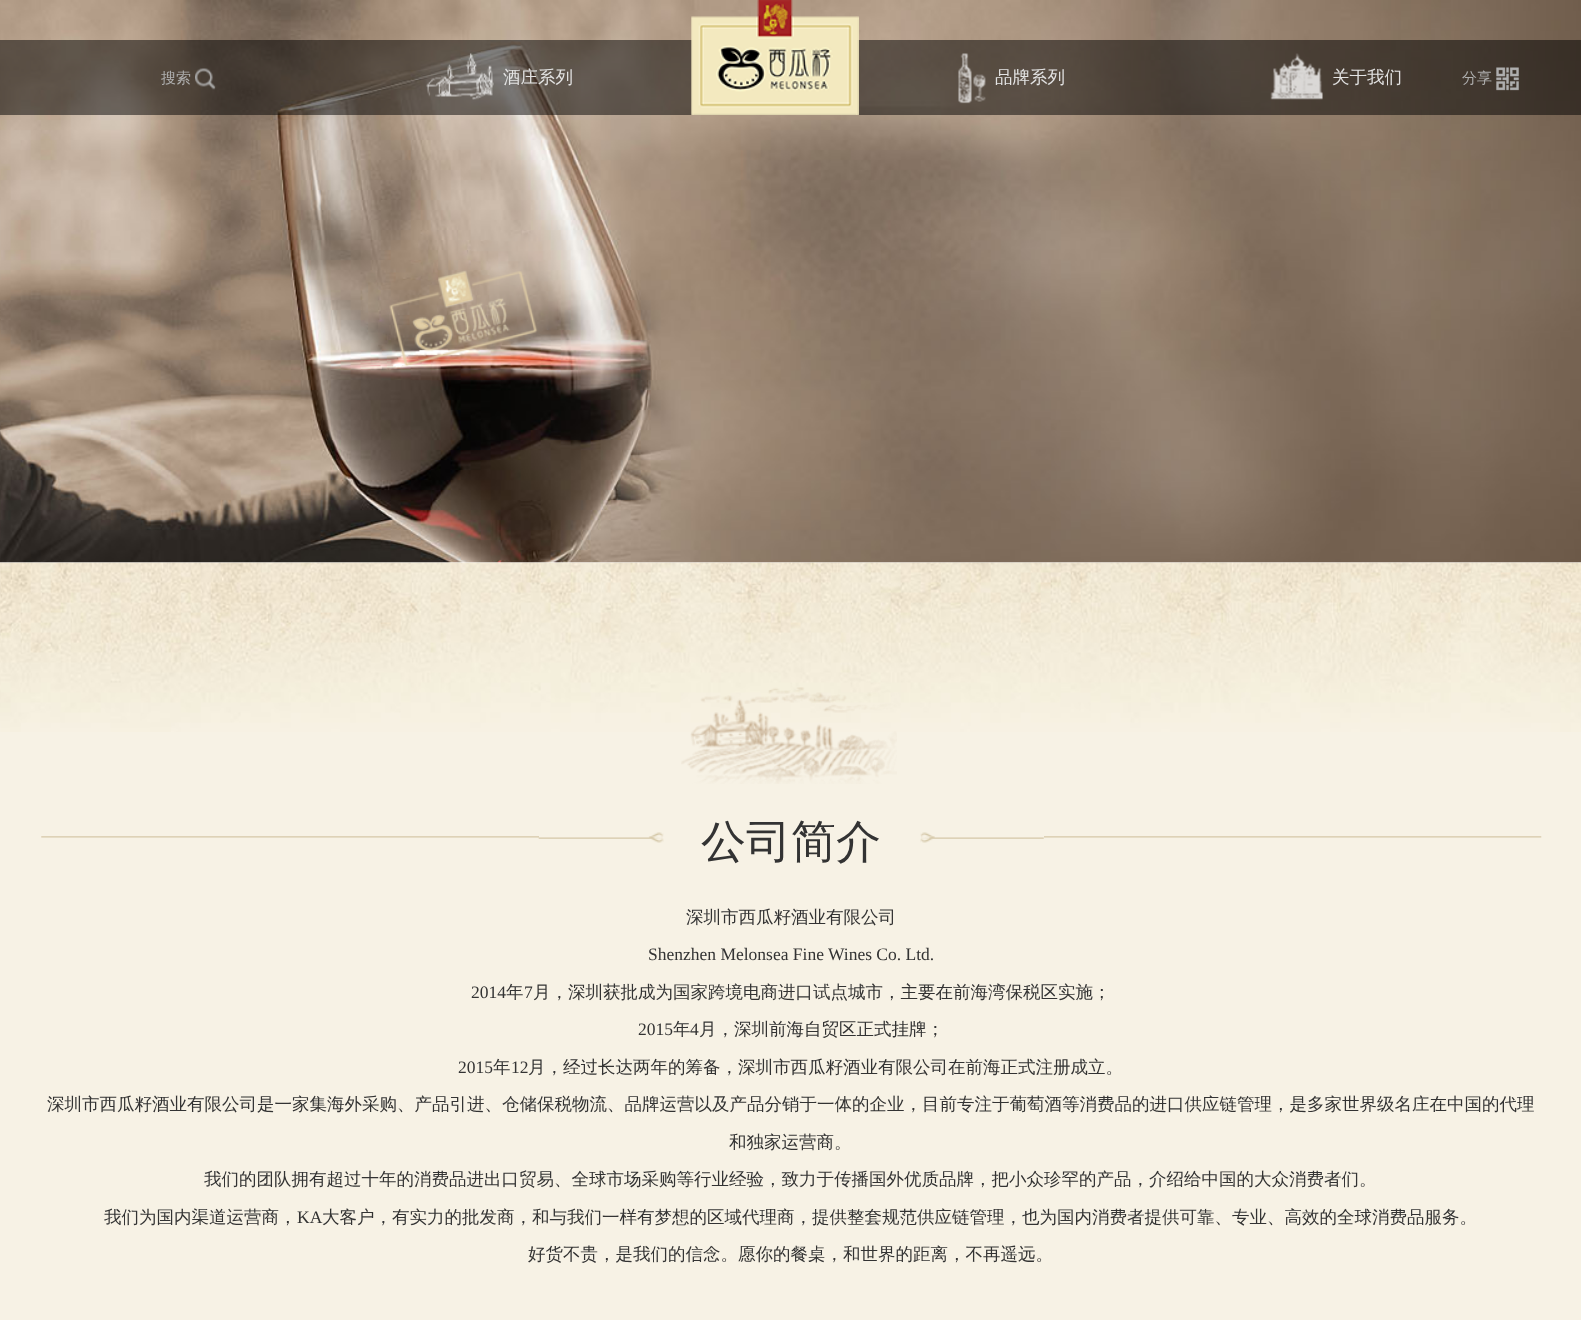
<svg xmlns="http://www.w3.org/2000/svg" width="1581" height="1320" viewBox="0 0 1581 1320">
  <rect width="100%" height="100%" fill="rgb(255,255,255)"/>
  <image x="0" y="562" width="1581" height="170" href="pic8.png"/>
  <image x="0" y="0" width="1581" height="563" href="pic1.png"/>
  <rect x="0" y="40" width="1581" height="75" fill="rgba(0,0,0,0.5)"/>
  <image x="691" y="0" width="168" height="115" href="pic2.png"/>
  <text x="161" y="83" font-family="WenQuanYi Zen Hei" font-size="15" font-weight="500" fill="rgb(174,174,174)">搜索</text>
  <image x="195" y="68" width="21" height="22" href="pic3.png"/>
  <image x="426" y="53" width="68" height="47" href="pic4.png"/>
  <text x="503" y="83" font-family="WenQuanYi Zen Hei" font-size="17.5" font-weight="500" fill="rgb(227,227,227)">酒庄系列</text>
  <image x="958" y="53" width="28" height="51" href="pic5.png"/>
  <text x="995" y="83" font-family="WenQuanYi Zen Hei" font-size="17.5" font-weight="500" fill="rgb(227,227,227)">品牌系列</text>
  <image x="1270" y="53" width="53" height="47" href="pic6.png"/>
  <text x="1332" y="83" font-family="WenQuanYi Zen Hei" font-size="17.5" font-weight="500" fill="rgb(227,227,227)">关于我们</text>
  <text x="1462" y="83" font-family="WenQuanYi Zen Hei" font-size="15" font-weight="500" fill="rgb(174,174,174)">分享</text>
  <image x="1496" y="67" width="23" height="24" href="pic7.png"/>
  <rect x="0" y="732" width="1581" height="588" fill="rgb(247,242,229)"/>
  <image x="681" y="687" width="216" height="97" href="pic9.png"/>
  <image x="41" y="836" width="1501" height="2" href="pic10.png"/>
  <rect x="539" y="836" width="505" height="2" fill="rgb(247,242,229)"/>
  <image x="538" y="832" width="126" height="11" href="pic11.png"/>
  <text x="701" y="857" font-family="WenQuanYi Zen Hei" font-size="45" font-weight="500" fill="rgb(51,51,51)">公司简介</text>
  <image x="920" y="832" width="124" height="11" href="pic12.png"/>
  <text x="686" y="923" font-family="WenQuanYi Zen Hei" font-size="17.5" font-weight="500" fill="rgb(51,51,51)">深圳市西瓜籽酒业有限公司</text>
  <g font-family="Liberation Serif" font-size="17.5" fill="rgb(51,51,51)">
    <text x="648" y="960">Shenzhen Melonsea Fine Wines Co. Ltd.</text>
    <text x="471" y="998">2014</text>
  </g>
  <text x="506" y="998" font-family="WenQuanYi Zen Hei" font-size="17.5" font-weight="500" fill="rgb(51,51,51)">年</text>
  <text x="524" y="998" font-family="Liberation Serif" font-size="17.5" fill="rgb(51,51,51)">7</text>
  <text x="533" y="998" font-family="WenQuanYi Zen Hei" font-size="17.5" font-weight="500" fill="rgb(51,51,51)">月，深圳获批成为国家跨境电商进口试点城市，主要在前海湾保税区实施；</text>
  <text x="638" y="1035" font-family="Liberation Serif" font-size="17.5" fill="rgb(51,51,51)">2015</text>
  <text x="673" y="1035" font-family="WenQuanYi Zen Hei" font-size="17.5" font-weight="500" fill="rgb(51,51,51)">年</text>
  <text x="690" y="1035" font-family="Liberation Serif" font-size="17.5" fill="rgb(51,51,51)">4</text>
  <text x="699" y="1035" font-family="WenQuanYi Zen Hei" font-size="17.5" font-weight="500" fill="rgb(51,51,51)">月，深圳前海自贸区正式挂牌；</text>
  <text x="458" y="1073" font-family="Liberation Serif" font-size="17.5" fill="rgb(51,51,51)">2015</text>
  <text x="493" y="1073" font-family="WenQuanYi Zen Hei" font-size="17.5" font-weight="500" fill="rgb(51,51,51)">年</text>
  <text x="511" y="1073" font-family="Liberation Serif" font-size="17.5" fill="rgb(51,51,51)">12</text>
  <g font-family="WenQuanYi Zen Hei" font-size="17.5" font-weight="500" fill="rgb(51,51,51)">
    <text x="528" y="1073">月，经过长达两年的筹备，深圳市西瓜籽酒业有限公司在前海正式注册成立。</text>
    <text x="47" y="1110">深圳市西瓜籽酒业有限公司是一家集海外采购、产品引进、仓储保税物流、品牌运营以及产品分销于一体的企业，目前专注于葡萄酒等消费品的进口供应链管理，是多家世界级名庄在中国的代理</text>
    <text x="729" y="1148">和独家运营商。</text>
    <text x="204" y="1185">我们的团队拥有超过十年的消费品进出口贸易、全球市场采购等行业经验，致力于传播国外优质品牌，把小众珍罕的产品，介绍给中国的大众消费者们。</text>
    <text x="104" y="1223">我们为国内渠道运营商，</text>
  </g>
  <text x="297" y="1223" font-family="Liberation Serif" font-size="17.5" fill="rgb(51,51,51)">KA</text>
  <g font-family="WenQuanYi Zen Hei" font-size="17.5" font-weight="500" fill="rgb(51,51,51)">
    <text x="322" y="1223">大客户，有实力的批发商，和与我们一样有梦想的区域代理商，提供整套规范供应链管理，也为国内消费者提供可靠、专业、高效的全球消费品服务。</text>
    <text x="528" y="1260">好货不贵，是我们的信念。愿你的餐桌，和世界的距离，不再遥远。</text>
  </g>
</svg>
